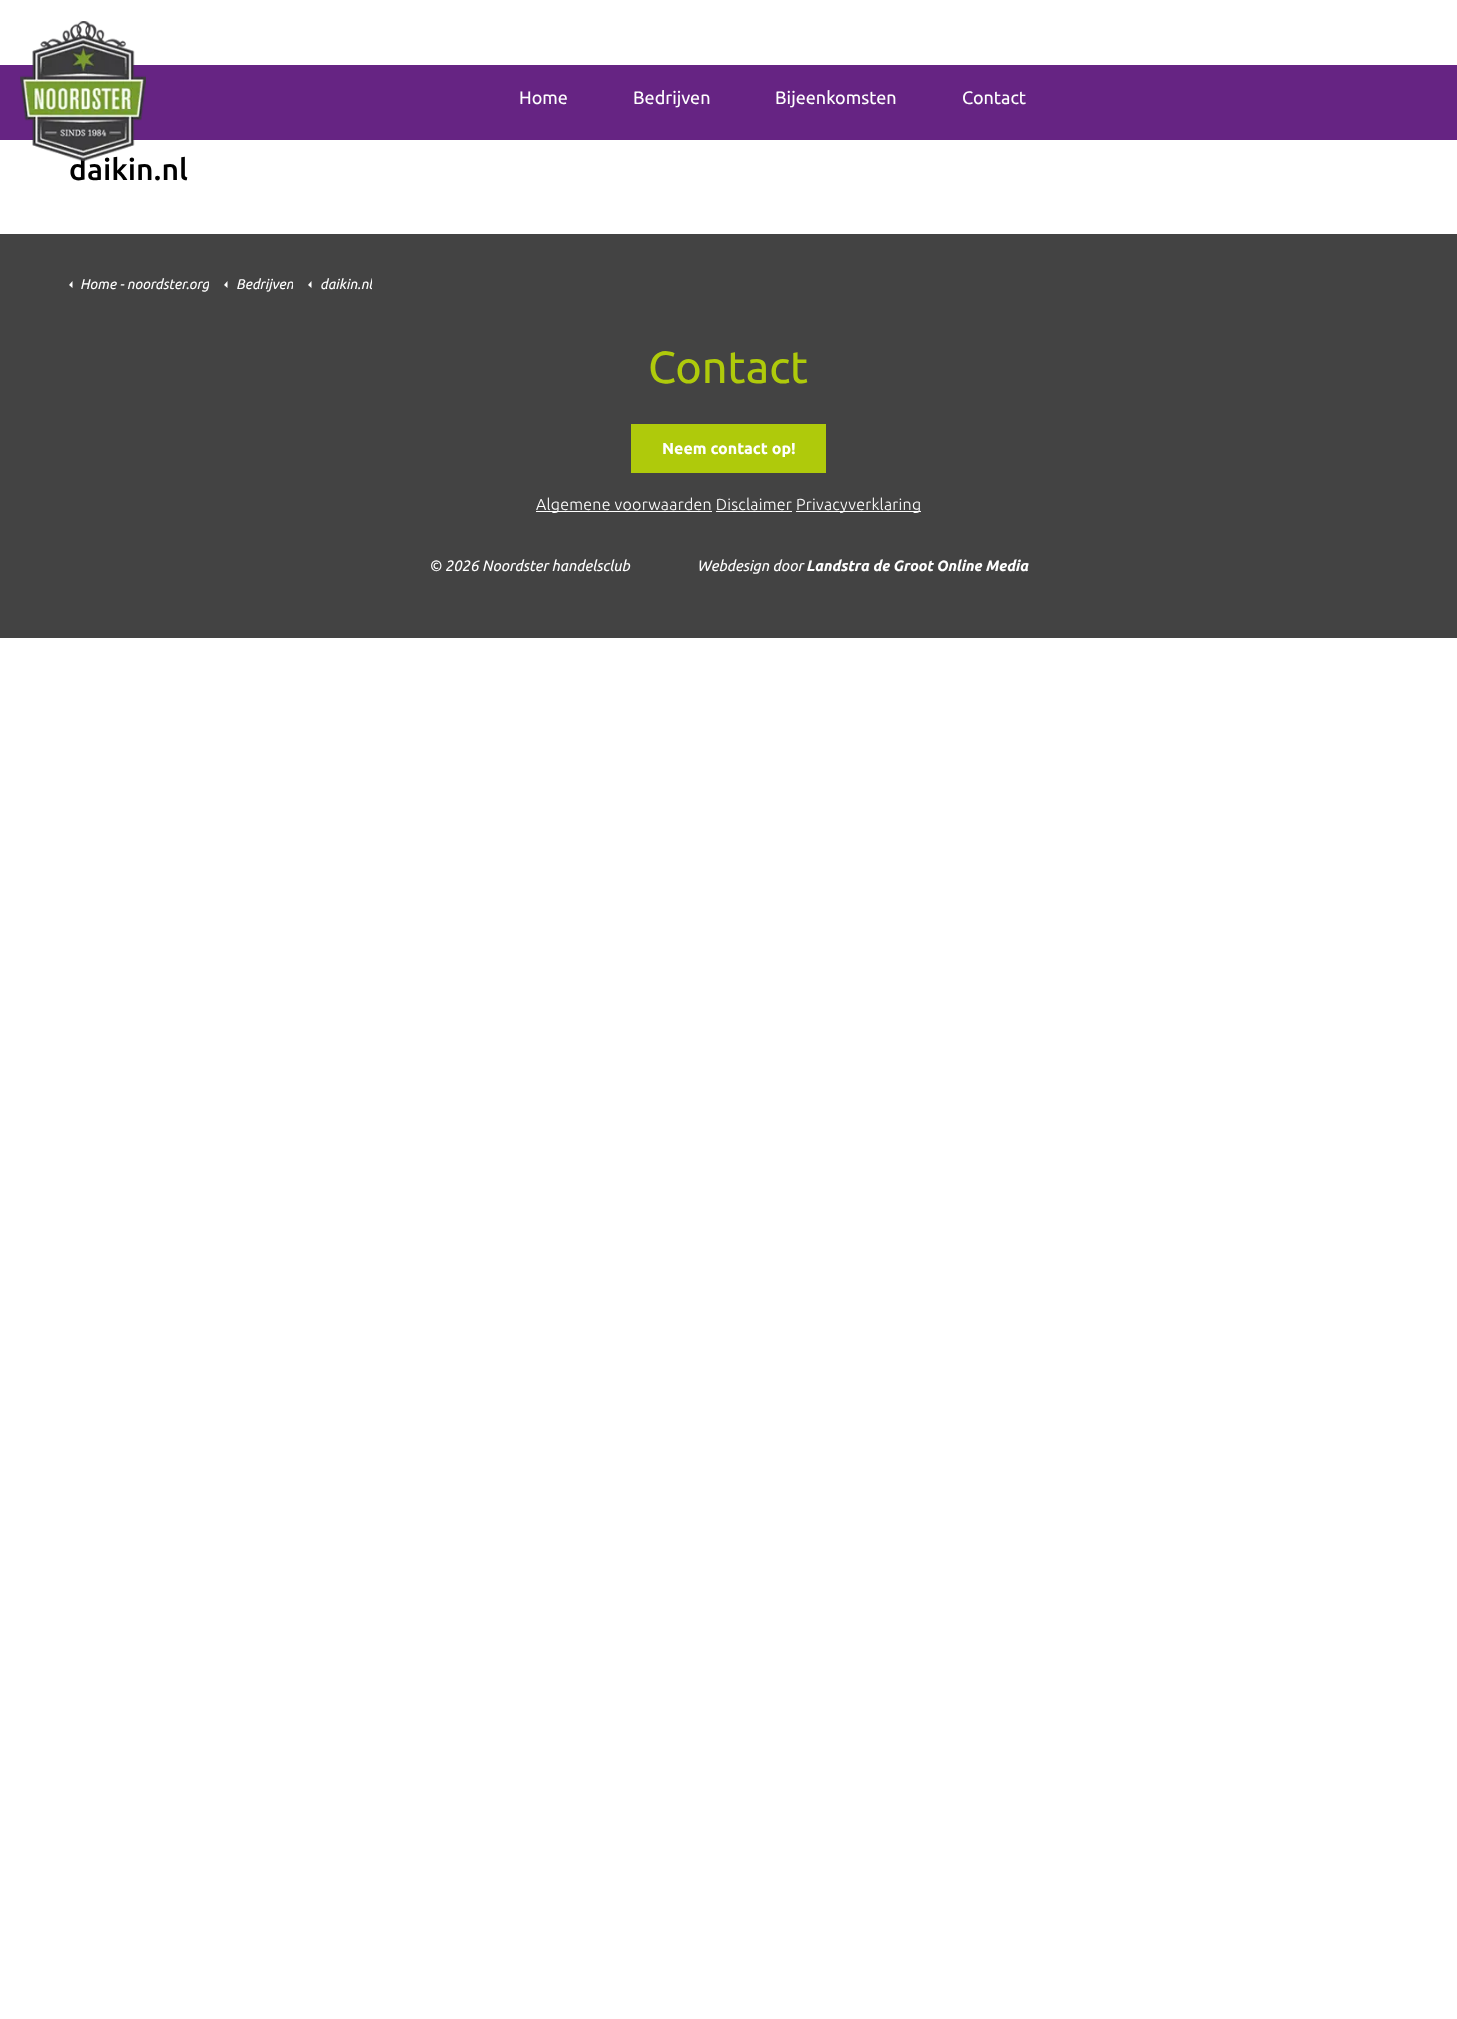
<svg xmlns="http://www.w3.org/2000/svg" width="1457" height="2019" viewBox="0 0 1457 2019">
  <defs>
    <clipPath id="clip1"><rect x="69" y="274" width="140" height="21"/></clipPath>
    <clipPath id="clip2"><rect x="224" y="274" width="69" height="21"/></clipPath>
    <clipPath id="clip3"><rect x="308" y="269" width="64" height="31"/></clipPath>
  </defs>
  <rect width="100%" height="100%" fill="rgb(255,255,255)"/>
  <rect x="0" y="65" width="1457" height="75" fill="rgb(102,36,131)"/>
  <text x="69" y="180" font-family="Ubuntu" font-size="30" font-weight="500" fill="rgb(0,0,0)">daikin.nl</text>
  <image x="20" y="21" width="126" height="140" href="pic1.png"/>
  <g font-family="Ubuntu" font-size="18" fill="rgb(255,255,255)">
    <text x="519" y="104">Home</text>
    <text x="633" y="104">Bedrijven</text>
    <text x="775" y="104">Bijeenkomsten</text>
    <text x="962" y="104">Contact</text>
  </g>
  <rect x="0" y="234" width="1457" height="404" fill="rgb(67,67,67)"/>
  <path d="M72.5 281V288L69 285Z" fill="rgb(255,255,255)"/>
  <g clip-path="url(#clip1)">
    <text x="80" y="289" font-family="Ubuntu" font-size="14" font-style="italic" fill="rgb(255,255,255)">Home - noordster.org</text>
  </g>
  <path d="M227.5 281V288L224 285Z" fill="rgb(255,255,255)"/>
  <g clip-path="url(#clip2)">
    <text x="236" y="289" font-family="Ubuntu" font-size="14" font-style="italic" fill="rgb(255,255,255)">Bedrijven</text>
  </g>
  <path d="M311.5 281V288L308 285Z" fill="rgb(255,255,255)"/>
  <g clip-path="url(#clip3)">
    <text x="320" y="289" font-family="Ubuntu" font-size="14" font-style="italic" fill="rgb(255,255,255)">daikin.nl</text>
  </g>
  <text x="648" y="383" font-family="Ubuntu" font-size="45" fill="rgb(175,202,11)">Contact</text>
  <rect x="631" y="424" width="195" height="49" fill="rgb(175,202,11)"/>
  <text x="662" y="454" font-family="Ubuntu" font-size="16" font-weight="bold" fill="rgb(255,255,255)">Neem contact op!</text>
  <rect x="536" y="511" width="176" height="1" fill="rgb(255,255,255)"/>
  <text x="536" y="510" font-family="Ubuntu" font-size="16" font-weight="300" letter-spacing="0.25" fill="rgb(255,255,255)">Algemene voorwaarden Disclaimer</text>
  <rect x="796" y="511" width="125" height="1" fill="rgb(255,255,255)"/>
  <text x="796" y="510" font-family="Ubuntu" font-size="16" font-weight="300" letter-spacing="0.25" fill="rgb(255,255,255)">Privacyverklaring</text>
  <rect x="716" y="511" width="76" height="1" fill="rgb(255,255,255)"/>
  <g font-family="Ubuntu" font-size="15" font-style="italic" fill="rgb(255,255,255)">
    <text x="429" y="571">© 2026 Noordster handelsclub</text>
    <text x="697" y="571">Webdesign door</text>
  </g>
  <text x="806" y="571" font-family="Ubuntu" font-size="15" font-weight="bold" font-style="italic" fill="rgb(255,255,255)">Landstra de Groot Online Media</text>
</svg>
